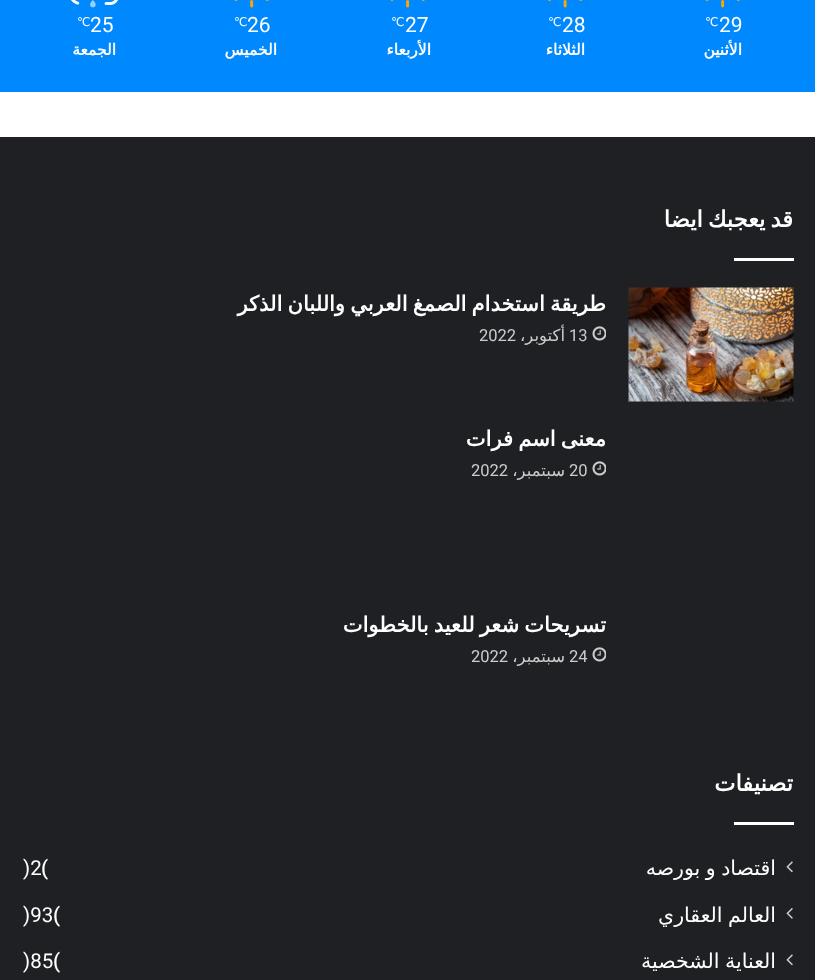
<svg xmlns="http://www.w3.org/2000/svg" width="815" height="980" viewBox="0 0 815 980">
  <rect width="100%" height="100%" fill="rgb(255,255,255)"/>
  <rect x="0" y="0" width="815" height="92" fill="rgb(0,136,255)"/>
  <image x="705" y="0" width="35" height="8" href="pic1.png"/>
  <text x="719" y="32" font-family="Roboto" font-size="21" fill="rgb(255,255,255)">29</text>
  <text x="705" y="26" font-family="DejaVu Sans" font-size="12" fill="rgb(255,255,255)">℃</text>
  <text x="742" y="55" font-family="DejaVu Sans" font-size="15.5" font-weight="bold" direction="rtl" fill="rgb(255,255,255)">الأثنين</text>
  <image x="548" y="0" width="35" height="8" href="pic2.png"/>
  <text x="562" y="32" font-family="Roboto" font-size="21" fill="rgb(255,255,255)">28</text>
  <text x="548" y="26" font-family="DejaVu Sans" font-size="12" fill="rgb(255,255,255)">℃</text>
  <text x="585" y="55" font-family="DejaVu Sans" font-size="15.5" font-weight="bold" direction="rtl" fill="rgb(255,255,255)">الثلاثاء</text>
  <image x="390" y="0" width="35" height="8" href="pic1.png"/>
  <text x="405" y="32" font-family="Roboto" font-size="21" fill="rgb(255,255,255)">27</text>
  <text x="391" y="26" font-family="DejaVu Sans" font-size="12" fill="rgb(255,255,255)">℃</text>
  <text x="431" y="55" font-family="DejaVu Sans" font-size="15.5" font-weight="bold" direction="rtl" fill="rgb(255,255,255)">الأربعاء</text>
  <image x="234" y="0" width="35" height="8" href="pic1.png"/>
  <text x="247" y="32" font-family="Roboto" font-size="21" fill="rgb(255,255,255)">26</text>
  <text x="234" y="26" font-family="DejaVu Sans" font-size="12" fill="rgb(255,255,255)">℃</text>
  <text x="277" y="55" font-family="DejaVu Sans" font-size="15.5" font-weight="bold" direction="rtl" fill="rgb(255,255,255)">الخميس</text>
  <image x="71" y="0" width="47" height="5" href="pic3.png"/>
  <image x="90" y="0" width="6" height="8" href="pic4.png"/>
  <text x="90" y="32" font-family="Roboto" font-size="21" fill="rgb(255,255,255)">25</text>
  <text x="77" y="26" font-family="DejaVu Sans" font-size="12" fill="rgb(255,255,255)">℃</text>
  <text x="116" y="55" font-family="DejaVu Sans" font-size="15.5" font-weight="bold" direction="rtl" fill="rgb(255,255,255)">الجمعة</text>
  <rect x="0" y="137" width="815" height="843" fill="rgb(31,32,36)"/>
  <text x="793" y="227" word-spacing="-2" font-family="DejaVu Sans" font-size="22.5" font-weight="bold" direction="rtl" fill="rgb(255,255,255)">قد يعجبك ايضا</text>
  <rect x="734" y="258" width="60" height="3" fill="rgb(255,255,255)"/>
  <image x="628" y="287" width="166" height="115" href="pic5.png"/>
  <text x="606" y="311" word-spacing="-1.5" font-family="DejaVu Sans" font-size="21" font-weight="bold" direction="rtl" fill="rgb(255,255,255)">طريقة استخدام الصمغ العربي واللبان الذكر</text>
  <image x="592" y="326" width="14" height="15" href="pic6.png"/>
  <text x="569" y="341" font-family="Roboto" font-size="16.5" fill="rgb(204,204,204)">13</text>
  <text x="565" y="341" font-family="DejaVu Sans" font-size="16.5" direction="rtl" fill="rgb(204,204,204)">أكتوبر،</text>
  <text x="479" y="341" font-family="Roboto" font-size="16.5" fill="rgb(204,204,204)">2022</text>
  <text x="606" y="446" word-spacing="-1.5" font-family="DejaVu Sans" font-size="21" font-weight="bold" direction="rtl" fill="rgb(255,255,255)">معنى اسم فرات</text>
  <image x="592" y="461" width="14" height="15" href="pic6.png"/>
  <text x="569" y="476" font-family="Roboto" font-size="16.5" fill="rgb(204,204,204)">20</text>
  <text x="565" y="476" font-family="DejaVu Sans" font-size="16.5" direction="rtl" fill="rgb(204,204,204)">سبتمبر،</text>
  <text x="471" y="476" font-family="Roboto" font-size="16.5" fill="rgb(204,204,204)">2022</text>
  <text x="606" y="632" word-spacing="-1.5" font-family="DejaVu Sans" font-size="21" font-weight="bold" direction="rtl" fill="rgb(255,255,255)">تسريحات شعر للعيد بالخطوات</text>
  <image x="592" y="647" width="14" height="15" href="pic6.png"/>
  <text x="569" y="662" font-family="Roboto" font-size="16.5" fill="rgb(204,204,204)">24</text>
  <text x="565" y="662" font-family="DejaVu Sans" font-size="16.5" direction="rtl" fill="rgb(204,204,204)">سبتمبر،</text>
  <text x="471" y="662" font-family="Roboto" font-size="16.5" fill="rgb(204,204,204)">2022</text>
  <text x="793" y="791" font-family="DejaVu Sans" font-size="22.5" font-weight="bold" direction="rtl" fill="rgb(255,255,255)">تصنيفات</text>
  <rect x="734" y="822" width="60" height="3" fill="rgb(255,255,255)"/>
  <image x="786" y="861" width="7" height="12" href="pic7.png"/>
  <text x="776" y="875" word-spacing="-1" font-family="DejaVu Sans" font-size="20.5" direction="rtl" fill="rgb(255,255,255)">اقتصاد و بورصه</text>
  <text x="41" y="875" font-family="Roboto" font-size="20.5" font-weight="500" fill="rgb(255,255,255)">(</text>
  <text x="23" y="875" font-family="Roboto" font-size="20.5" fill="rgb(255,255,255)">)2</text>
  <image x="786" y="908" width="7" height="11" href="pic8.png"/>
  <text x="776" y="922" word-spacing="-1" font-family="DejaVu Sans" font-size="20.5" direction="rtl" fill="rgb(255,255,255)">العالم العقاري</text>
  <text x="53" y="922" font-family="Roboto" font-size="20.5" font-weight="500" fill="rgb(255,255,255)">(</text>
  <text x="23" y="922" font-family="Roboto" font-size="20.5" fill="rgb(255,255,255)">)93</text>
  <image x="786" y="954" width="7" height="12" href="pic7.png"/>
  <text x="776" y="968" word-spacing="-1" font-family="DejaVu Sans" font-size="20.5" direction="rtl" fill="rgb(255,255,255)">العناية الشخصية</text>
  <text x="53" y="968" font-family="Roboto" font-size="20.5" font-weight="500" fill="rgb(255,255,255)">(</text>
  <text x="23" y="968" font-family="Roboto" font-size="20.5" fill="rgb(255,255,255)">)85</text>
</svg>
